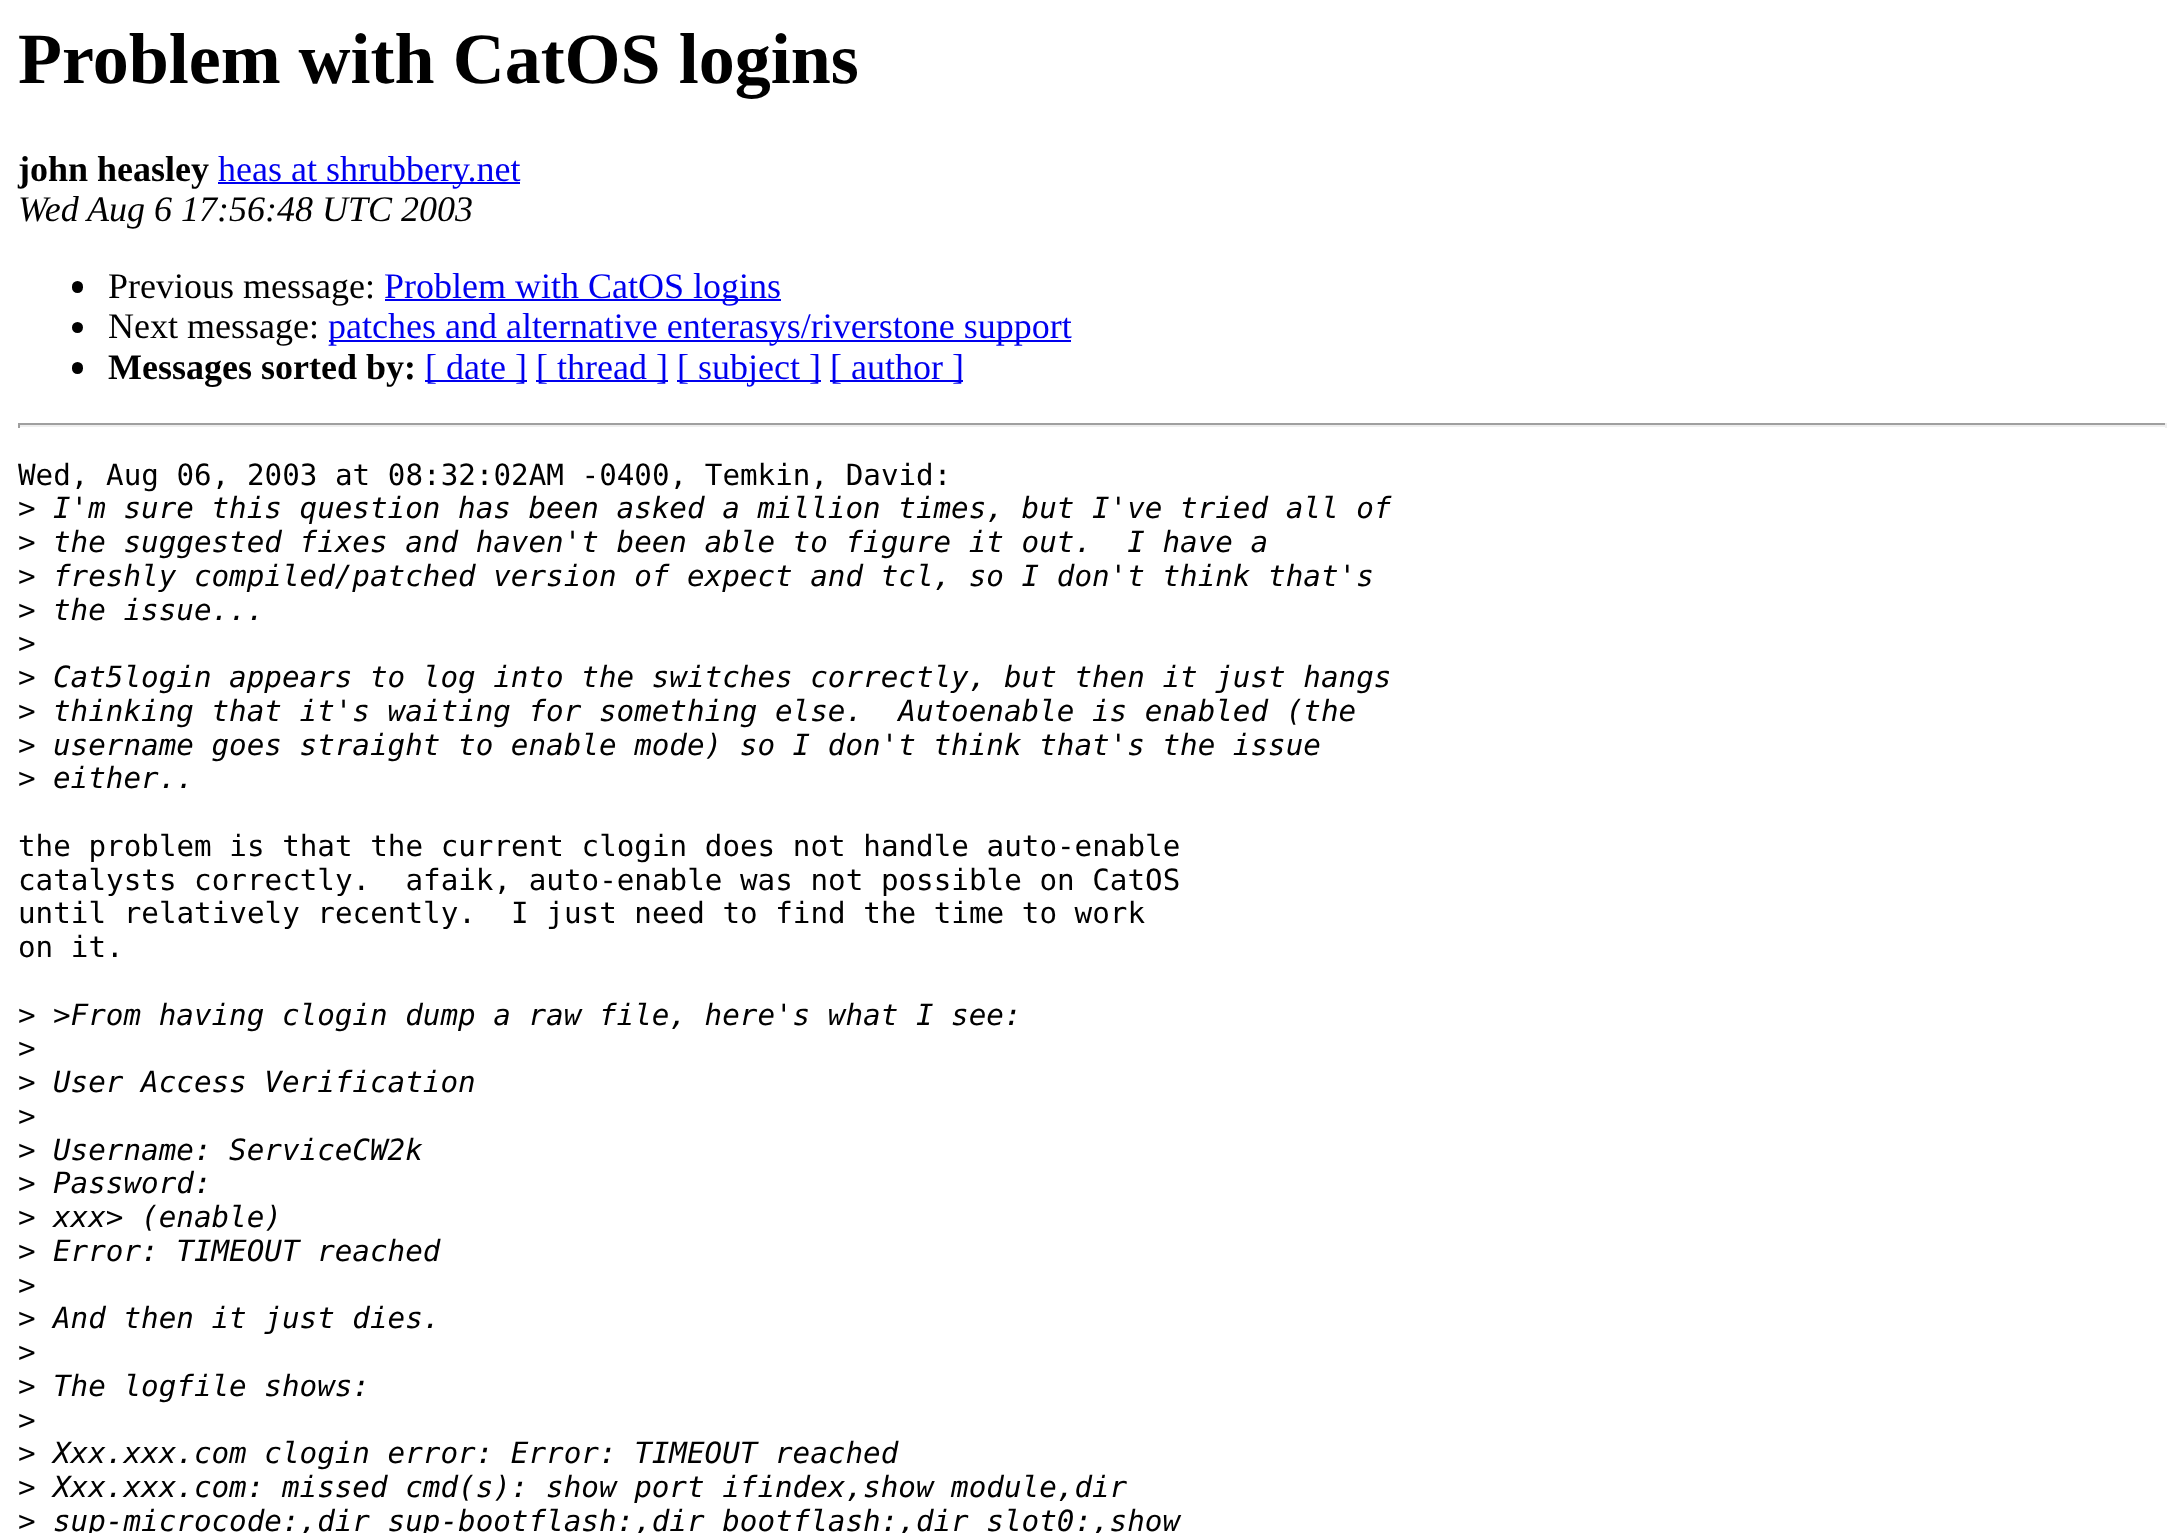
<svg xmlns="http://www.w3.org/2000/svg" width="2184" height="1533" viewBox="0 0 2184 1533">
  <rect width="100%" height="100%" fill="rgb(255,255,255)"/>
  <text x="18" y="83" font-family="Liberation Serif" font-size="72" font-weight="bold" fill="rgb(0,0,0)">Problem with CatOS logins</text>
  <text x="18" y="181" font-family="Liberation Serif" font-size="36" font-weight="bold" fill="rgb(0,0,0)">john heasley</text>
  <rect x="218" y="182" width="302" height="2" fill="rgb(0,0,238)"/>
  <text x="218" y="181" font-family="Liberation Serif" font-size="36" fill="rgb(0,0,238)">heas at shrubbery.net</text>
  <text x="18" y="221" font-family="Liberation Serif" font-size="36" font-style="italic" fill="rgb(0,0,0)">Wed Aug 6 17:56:48 UTC 2003</text>
  <rect x="72" y="281" width="11" height="12" rx="5.5" fill="rgb(0,0,0)"/>
  <text x="108" y="298" font-family="Liberation Serif" font-size="36" fill="rgb(0,0,0)">Previous message:</text>
  <rect x="385" y="299" width="396" height="2" fill="rgb(0,0,238)"/>
  <text x="384" y="298" font-family="Liberation Serif" font-size="36" fill="rgb(0,0,238)">Problem with CatOS logins</text>
  <circle cx="77.5" cy="327.5" r="5.5" fill="rgb(0,0,0)"/>
  <text x="108" y="338" font-family="Liberation Serif" font-size="36" fill="rgb(0,0,0)">Next message:</text>
  <rect x="329" y="340" width="742" height="2" fill="rgb(0,0,238)"/>
  <text x="328" y="338" font-family="Liberation Serif" font-size="36" fill="rgb(0,0,238)">patches and alternative enterasys/riverstone support</text>
  <rect x="72" y="362" width="11" height="12" rx="5.5" fill="rgb(0,0,0)"/>
  <text x="108" y="379" font-family="Liberation Serif" font-size="36" font-weight="bold" fill="rgb(0,0,0)">Messages sorted by:</text>
  <rect x="425" y="380" width="102" height="2" fill="rgb(0,0,238)"/>
  <text x="425" y="379" font-family="Liberation Serif" font-size="36" fill="rgb(0,0,238)">[ date ]</text>
  <rect x="536" y="380" width="132" height="2" fill="rgb(0,0,238)"/>
  <text x="536" y="379" font-family="Liberation Serif" font-size="36" fill="rgb(0,0,238)">[ thread ]</text>
  <rect x="677" y="380" width="144" height="2" fill="rgb(0,0,238)"/>
  <text x="677" y="379" font-family="Liberation Serif" font-size="36" fill="rgb(0,0,238)">[ subject ]</text>
  <rect x="830" y="380" width="133" height="2" fill="rgb(0,0,238)"/>
  <text x="830" y="379" font-family="Liberation Serif" font-size="36" fill="rgb(0,0,238)">[ author ]</text>
  <rect x="18" y="423" width="2149" height="2" fill="rgb(159,159,159)"/>
  <rect x="2165" y="423" width="2" height="5" fill="rgb(238,238,238)"/>
  <rect x="18" y="425" width="2149" height="2" fill="rgb(238,238,238)"/>
  <rect x="18" y="423" width="2" height="5" fill="rgb(159,159,159)"/>
  <g font-family="DejaVu Sans Mono" font-size="29.25" fill="rgb(0,0,0)">
    <text>
      <tspan x="18" y="485">Wed, Aug 06, 2003 at 08:32:02AM -0400, Temkin, David:</tspan>
      <tspan x="18" y="518">&gt;</tspan>
    </text>
  </g>
  <text x="53" y="518" font-family="DejaVu Sans Mono" font-size="29.25" font-style="italic" fill="rgb(0,0,0)">I'm sure this question has been asked a million times, but I've tried all of</text>
  <text x="18" y="552" font-family="DejaVu Sans Mono" font-size="29.25" fill="rgb(0,0,0)">&gt;</text>
  <text x="53" y="552" font-family="DejaVu Sans Mono" font-size="29.25" font-style="italic" fill="rgb(0,0,0)" xml:space="preserve">the suggested fixes and haven't been able to figure it out.  I have a</text>
  <text x="18" y="586" font-family="DejaVu Sans Mono" font-size="29.25" fill="rgb(0,0,0)">&gt;</text>
  <text x="53" y="586" font-family="DejaVu Sans Mono" font-size="29.25" font-style="italic" fill="rgb(0,0,0)">freshly compiled/patched version of expect and tcl, so I don't think that's</text>
  <text x="18" y="620" font-family="DejaVu Sans Mono" font-size="29.25" fill="rgb(0,0,0)">&gt;</text>
  <text x="53" y="620" font-family="DejaVu Sans Mono" font-size="29.25" font-style="italic" fill="rgb(0,0,0)">the issue...</text>
  <g font-family="DejaVu Sans Mono" font-size="29.25" fill="rgb(0,0,0)">
    <text>
      <tspan x="18" y="653">&gt;</tspan>
      <tspan x="18" y="687">&gt;</tspan>
    </text>
  </g>
  <text x="53" y="687" font-family="DejaVu Sans Mono" font-size="29.25" font-style="italic" fill="rgb(0,0,0)">Cat5login appears to log into the switches correctly, but then it just hangs</text>
  <text x="18" y="721" font-family="DejaVu Sans Mono" font-size="29.25" fill="rgb(0,0,0)">&gt;</text>
  <text x="53" y="721" font-family="DejaVu Sans Mono" font-size="29.25" font-style="italic" fill="rgb(0,0,0)" xml:space="preserve">thinking that it's waiting for something else.  Autoenable is enabled (the</text>
  <text x="18" y="755" font-family="DejaVu Sans Mono" font-size="29.25" fill="rgb(0,0,0)">&gt;</text>
  <text x="53" y="755" font-family="DejaVu Sans Mono" font-size="29.25" font-style="italic" fill="rgb(0,0,0)">username goes straight to enable mode) so I don't think that's the issue</text>
  <text x="18" y="788" font-family="DejaVu Sans Mono" font-size="29.25" fill="rgb(0,0,0)">&gt;</text>
  <text x="53" y="788" font-family="DejaVu Sans Mono" font-size="29.25" font-style="italic" fill="rgb(0,0,0)">either..</text>
  <g font-family="DejaVu Sans Mono" font-size="29.25" fill="rgb(0,0,0)">
    <text xml:space="preserve"><tspan x="18" y="856">the problem is that the current clogin does not handle auto-enable</tspan><tspan x="18" y="890">catalysts correctly.  afaik, auto-enable was not possible on CatOS</tspan><tspan x="18" y="923">until relatively recently.  I just need to find the time to work</tspan><tspan x="18" y="957">on it.</tspan></text>
    <text x="18" y="1025">&gt;</text>
  </g>
  <text x="53" y="1025" font-family="DejaVu Sans Mono" font-size="29.25" font-style="italic" fill="rgb(0,0,0)">&gt;From having clogin dump a raw file, here's what I see:</text>
  <g font-family="DejaVu Sans Mono" font-size="29.25" fill="rgb(0,0,0)">
    <text>
      <tspan x="18" y="1058">&gt;</tspan>
      <tspan x="18" y="1092">&gt;</tspan>
    </text>
  </g>
  <text x="53" y="1092" font-family="DejaVu Sans Mono" font-size="29.25" font-style="italic" fill="rgb(0,0,0)">User Access Verification</text>
  <g font-family="DejaVu Sans Mono" font-size="29.25" fill="rgb(0,0,0)">
    <text>
      <tspan x="18" y="1126">&gt;</tspan>
      <tspan x="18" y="1160">&gt;</tspan>
    </text>
  </g>
  <text x="53" y="1160" font-family="DejaVu Sans Mono" font-size="29.25" font-style="italic" fill="rgb(0,0,0)">Username: ServiceCW2k</text>
  <text x="18" y="1193" font-family="DejaVu Sans Mono" font-size="29.25" fill="rgb(0,0,0)">&gt;</text>
  <text x="53" y="1193" font-family="DejaVu Sans Mono" font-size="29.25" font-style="italic" fill="rgb(0,0,0)">Password:</text>
  <text x="18" y="1227" font-family="DejaVu Sans Mono" font-size="29.25" fill="rgb(0,0,0)">&gt;</text>
  <text x="53" y="1227" font-family="DejaVu Sans Mono" font-size="29.25" font-style="italic" fill="rgb(0,0,0)">xxx&gt; (enable)</text>
  <text x="18" y="1261" font-family="DejaVu Sans Mono" font-size="29.25" fill="rgb(0,0,0)">&gt;</text>
  <text x="53" y="1261" font-family="DejaVu Sans Mono" font-size="29.25" font-style="italic" fill="rgb(0,0,0)">Error: TIMEOUT reached</text>
  <g font-family="DejaVu Sans Mono" font-size="29.25" fill="rgb(0,0,0)">
    <text>
      <tspan x="18" y="1295">&gt;</tspan>
      <tspan x="18" y="1328">&gt;</tspan>
    </text>
  </g>
  <text x="53" y="1328" font-family="DejaVu Sans Mono" font-size="29.25" font-style="italic" fill="rgb(0,0,0)">And then it just dies.</text>
  <g font-family="DejaVu Sans Mono" font-size="29.25" fill="rgb(0,0,0)">
    <text>
      <tspan x="18" y="1362">&gt;</tspan>
      <tspan x="18" y="1396">&gt;</tspan>
    </text>
  </g>
  <text x="53" y="1396" font-family="DejaVu Sans Mono" font-size="29.25" font-style="italic" fill="rgb(0,0,0)">The logfile shows:</text>
  <g font-family="DejaVu Sans Mono" font-size="29.25" fill="rgb(0,0,0)">
    <text>
      <tspan x="18" y="1430">&gt;</tspan>
      <tspan x="18" y="1463">&gt;</tspan>
    </text>
  </g>
  <text x="53" y="1463" font-family="DejaVu Sans Mono" font-size="29.25" font-style="italic" fill="rgb(0,0,0)">Xxx.xxx.com clogin error: Error: TIMEOUT reached</text>
  <text x="18" y="1497" font-family="DejaVu Sans Mono" font-size="29.25" fill="rgb(0,0,0)">&gt;</text>
  <text x="53" y="1497" font-family="DejaVu Sans Mono" font-size="29.25" font-style="italic" fill="rgb(0,0,0)">Xxx.xxx.com: missed cmd(s): show port ifindex,show module,dir</text>
  <text x="18" y="1531" font-family="DejaVu Sans Mono" font-size="29.25" fill="rgb(0,0,0)">&gt;</text>
  <text x="53" y="1531" font-family="DejaVu Sans Mono" font-size="29.25" font-style="italic" fill="rgb(0,0,0)">sup-microcode:,dir sup-bootflash:,dir bootflash:,dir slot0:,show</text>
</svg>
